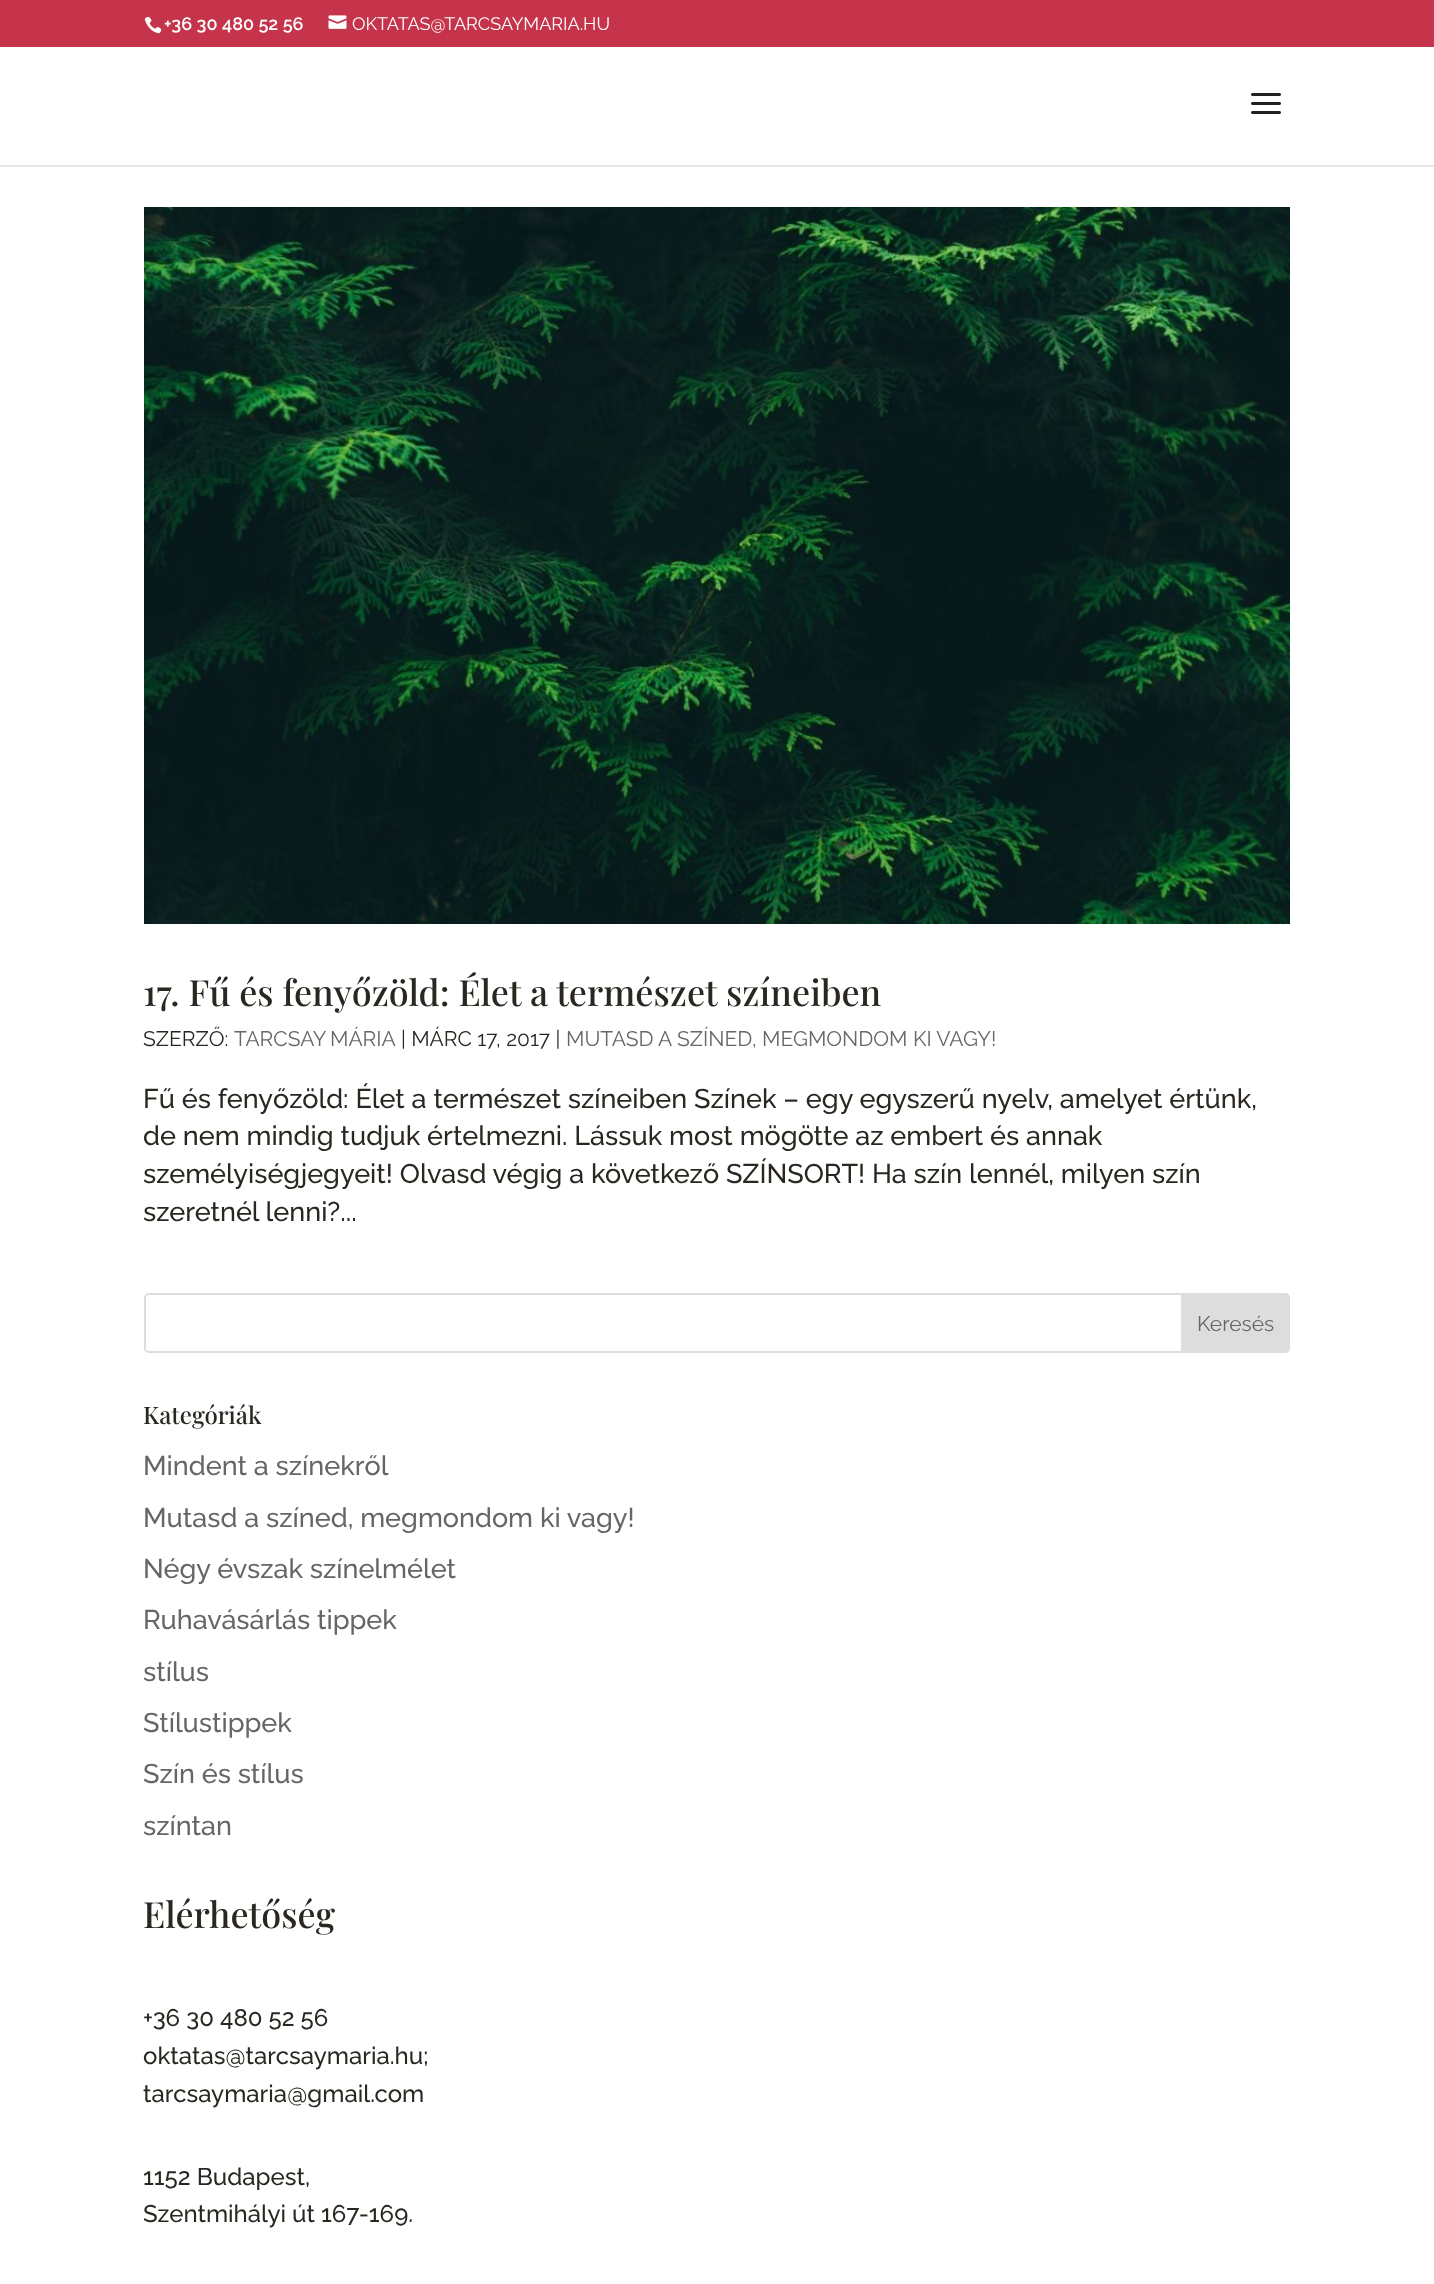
<svg xmlns="http://www.w3.org/2000/svg" width="1434" height="2284" viewBox="0 0 1434 2284">
  <rect width="100%" height="100%" fill="rgb(255,255,255)"/>
  <rect x="0" y="0" width="1434" height="47" fill="rgb(197,52,74)"/>
  <image x="144" y="16" width="18" height="18" href="pic1.png"/>
  <text x="164" y="30" font-family="Raleway" font-size="18" font-weight="600" fill="rgb(255,255,255)">+36 30 480 52 56</text>
  <image x="328" y="15" width="19" height="14" href="pic2.png"/>
  <text x="352" y="30" font-family="Raleway" font-size="18" fill="rgb(255,255,255)">OKTATAS@TARCSAYMARIA.HU</text>
  <rect x="0" y="165" width="1434" height="2" fill="rgb(230,230,230)"/>
  <image x="1251" y="93" width="30" height="21" href="pic3.png"/>
  <image x="144" y="207" width="1146" height="717" href="pic4.png"/>
  <text x="143" y="1006" font-family="Playfair Display" font-size="36" font-weight="500" fill="rgb(42,39,33)">17. Fű és fenyőzöld: Élet a természet színeiben</text>
  <text x="143" y="1046" font-family="Raleway" font-size="21" fill="rgb(42,39,33)">SZERZŐ:</text>
  <text x="234" y="1046" word-spacing="-1" font-family="Raleway" font-size="21" fill="rgb(102,102,102)">TARCSAY MÁRIA</text>
  <text x="401" y="1046" font-family="Raleway" font-size="21" fill="rgb(42,39,33)">| MÁRC 17, 2017 |</text>
  <text x="566" y="1046" font-family="Raleway" font-size="21" fill="rgb(102,102,102)">MUTASD A SZÍNED, MEGMONDOM KI VAGY!</text>
  <g font-family="Raleway" font-size="27" font-weight="500" fill="rgb(42,39,33)">
    <text>
      <tspan x="143" y="1108">Fű és fenyőzöld: Élet a természet színeiben Színek – egy egyszerű nyelv, amelyet értünk,</tspan>
      <tspan x="143" y="1145">de nem mindig tudjuk értelmezni. Lássuk most mögötte az embert és annak</tspan>
      <tspan x="143" y="1183">személyiségjegyeit! Olvasd végig a következő SZÍNSORT! Ha szín lennél, milyen szín</tspan>
      <tspan x="143" y="1221">szeretnél lenni?...</tspan>
    </text>
  </g>
  <rect x="145" y="1294" width="1144" height="58" rx="4" fill="none" stroke="rgb(221,221,221)" stroke-width="2"/>
  <path d="M1182 1294H1285C1287 1294 1289 1296 1289 1298V1348C1289 1350 1287 1352 1285 1352H1182Z" fill="rgb(221,221,221)" stroke="rgb(221,221,221)" stroke-width="2"/>
  <text x="1197" y="1331" font-family="Raleway" font-size="21" fill="rgb(102,102,102)">Keresés</text>
  <text x="143" y="1424" font-family="Playfair Display" font-size="24" font-weight="500" fill="rgb(42,39,33)">Kategóriák</text>
  <g font-family="Raleway" font-size="27" font-weight="500" fill="rgb(102,102,102)">
    <text>
      <tspan x="143" y="1475">Mindent a színekről</tspan>
      <tspan x="143" y="1527">Mutasd a színed, megmondom ki vagy!</tspan>
      <tspan x="143" y="1578">Négy évszak színelmélet</tspan>
      <tspan x="143" y="1629">Ruhavásárlás tippek</tspan>
      <tspan x="143" y="1681">stílus</tspan>
      <tspan x="143" y="1732">Stílustippek</tspan>
      <tspan x="143" y="1783">Szín és stílus</tspan>
      <tspan x="143" y="1835">színtan</tspan>
    </text>
  </g>
  <text x="143" y="1928" font-family="Playfair Display" font-size="36" font-weight="500" fill="rgb(42,39,33)">Elérhetőség</text>
  <g font-family="Raleway" font-size="24" font-weight="500" fill="rgb(42,39,33)">
    <text>
      <tspan x="143" y="2026">+36 30 480 52 56</tspan>
      <tspan x="143" y="2064">oktatas@tarcsaymaria.hu;</tspan>
      <tspan x="143" y="2102">tarcsaymaria@gmail.com</tspan>
    </text>
    <text>
      <tspan x="143" y="2185">1152 Budapest,</tspan>
      <tspan x="143" y="2222">Szentmihályi út 167-169.</tspan>
    </text>
  </g>
</svg>
